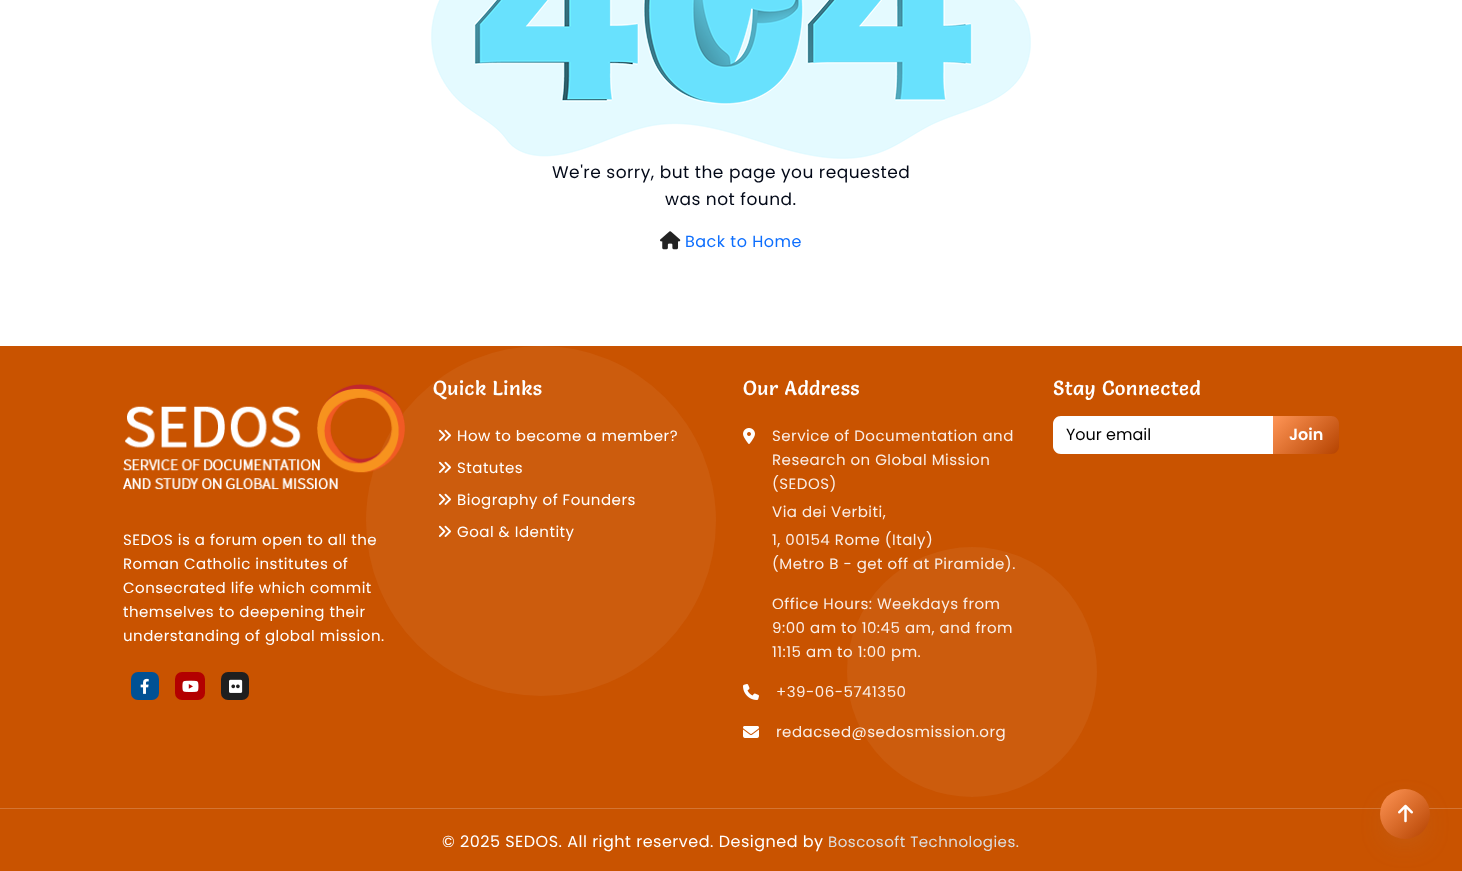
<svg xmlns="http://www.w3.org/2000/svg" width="1462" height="871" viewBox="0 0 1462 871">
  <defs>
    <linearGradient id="g1" gradientUnits="userSpaceOnUse" x1="1280" y1="409" x2="1332" y2="461"><stop offset="0" stop-color="rgb(255,149,86)"/><stop offset="1" stop-color="rgb(181,67,0)"/></linearGradient>
    <linearGradient id="g2" gradientUnits="userSpaceOnUse" x1="1380" y1="789" x2="1430" y2="839"><stop offset="0" stop-color="rgb(255,149,86)"/><stop offset="1" stop-color="rgb(181,67,0)"/></linearGradient>
  </defs>
  <rect width="100%" height="100%" fill="rgb(255,255,255)"/>
  <image x="431" y="0" width="600" height="159" href="pic1.png"/>
  <g font-family="Poppins" font-size="17" letter-spacing="0.5" fill="rgb(2,8,23)">
    <text x="552" y="178">We're sorry, but the page you requested</text>
    <text x="665" y="205">was not found.</text>
  </g>
  <image x="660" y="231" width="21" height="19" href="pic2.png"/>
  <text x="685" y="247" font-family="Poppins" font-size="16" letter-spacing="0.5" fill="rgb(13,110,253)">Back to Home</text>
  <rect x="0" y="346" width="1462" height="525" fill="rgb(201,83,0)"/>
  <circle cx="541" cy="521" r="175" fill="rgb(204,92,13)"/>
  <text x="433" y="395" font-family="Salsa" font-size="20" letter-spacing="0.5" fill="rgb(255,255,255)">Quick Links</text>
  <image x="438" y="429" width="13" height="12" href="pic3.png"/>
  <text x="457" y="441" font-family="Poppins" font-size="15" letter-spacing="0.5" fill="rgb(255,255,255)">How to become a member?</text>
  <image x="438" y="461" width="13" height="12" href="pic3.png"/>
  <text x="457" y="473" font-family="Poppins" font-size="15" letter-spacing="0.5" fill="rgb(255,255,255)">Statutes</text>
  <image x="438" y="493" width="13" height="12" href="pic3.png"/>
  <text x="457" y="505" font-family="Poppins" font-size="15" letter-spacing="0.5" fill="rgb(255,255,255)">Biography of Founders</text>
  <image x="438" y="525" width="13" height="12" href="pic3.png"/>
  <text x="457" y="537" font-family="Poppins" font-size="15" letter-spacing="0.5" fill="rgb(255,255,255)">Goal &amp; Identity</text>
  <text x="743" y="395" font-family="Salsa" font-size="20" letter-spacing="0.5" fill="rgb(255,255,255)">Our Address</text>
  <image x="743" y="428" width="12" height="16" href="pic4.png"/>
  <g font-family="Poppins" font-size="15" letter-spacing="0.5" fill="rgb(250,238,230)">
    <text>
      <tspan x="772" y="441">Service of Documentation and</tspan>
      <tspan x="772" y="465">Research on Global Mission</tspan>
      <tspan x="772" y="489">(SEDOS)</tspan>
      <tspan x="772" y="517">Via dei Verbiti,</tspan>
    </text>
  </g>
  <circle cx="972" cy="672" r="125" fill="rgb(204,92,13)"/>
  <g font-family="Poppins" font-size="15" letter-spacing="0.5" fill="rgb(250,238,230)">
    <text>
      <tspan x="772" y="545">1, 00154 Rome (Italy)</tspan>
      <tspan x="772" y="569">(Metro B - get off at Piramide).</tspan>
    </text>
    <text>
      <tspan x="772" y="609">Office Hours: Weekdays from</tspan>
      <tspan x="772" y="633">9:00 am to 10:45 am, and from</tspan>
      <tspan x="772" y="657">11:15 am to 1:00 pm.</tspan>
    </text>
  </g>
  <image x="743" y="684" width="16" height="16" href="pic5.png"/>
  <text x="776" y="697" font-family="Poppins" font-size="15" letter-spacing="0.5" fill="rgb(250,238,230)">+39-06-5741350</text>
  <image x="743" y="726" width="16" height="12" href="pic6.png"/>
  <text x="776" y="737" font-family="Poppins" font-size="15" letter-spacing="0.5" fill="rgb(250,238,230)">redacsed@sedosmission.org</text>
  <text x="1053" y="395" font-family="Salsa" font-size="20" letter-spacing="0.5" fill="rgb(255,255,255)">Stay Connected</text>
  <path d="M1061 416H1274V454H1061C1056.5 454 1053 450.5 1053 446V424C1053 419.5 1056.5 416 1061 416Z" fill="rgb(255,255,255)"/>
  <path d="M1061 416.5H1273.5V453.5H1061C1057 453.5 1053.5 450 1053.5 446V424C1053.5 420 1057 416.5 1061 416.5Z" fill="none" stroke="rgba(255,255,255,0.2)"/>
  <text x="1066" y="440" font-family="Poppins" font-size="16" fill="rgb(0,0,0)">Your email</text>
  <path d="M1273 416H1331C1335.5 416 1339 419.5 1339 424V446C1339 450.5 1335.5 454 1331 454H1273Z" fill="url(#g1)"/>
  <text x="1289" y="440" font-family="Poppins" font-size="16" font-weight="600" fill="rgb(255,255,255)">Join</text>
  <image x="123" y="384" width="282" height="106" href="pic7.png"/>
  <g font-family="Poppins" font-size="15" letter-spacing="0.5" fill="rgb(255,255,255)">
    <text>
      <tspan x="123" y="545">SEDOS is a forum open to all the</tspan>
      <tspan x="123" y="569">Roman Catholic institutes of</tspan>
      <tspan x="123" y="593">Consecrated life which commit</tspan>
      <tspan x="123" y="617">themselves to deepening their</tspan>
      <tspan x="123" y="641">understanding of global mission.</tspan>
    </text>
  </g>
  <rect x="131" y="672" width="28" height="28" rx="7" fill="rgb(0,81,148)"/>
  <image x="140" y="678" width="9" height="16" href="pic8.png"/>
  <rect x="175" y="672" width="30" height="28" rx="7" fill="rgb(179,0,0)"/>
  <image x="182" y="680" width="17" height="12" href="pic9.png"/>
  <rect x="221" y="672" width="28" height="28" rx="7" fill="rgb(31,31,31)"/>
  <image x="229" y="679" width="14" height="14" href="pic10.png"/>
  <rect x="0" y="808" width="1462" height="1" fill="rgb(212,117,51)"/>
  <text x="442" y="847" font-family="Poppins" font-size="16" letter-spacing="0.5" fill="rgb(255,255,255)">© 2025 SEDOS. All right reserved. Designed by</text>
  <text x="828" y="847" font-family="Poppins" font-size="15" letter-spacing="0.5" fill="rgb(221,221,221)">Boscosoft Technologies.</text>
  <rect x="1390" y="809" width="30" height="30" rx="15" fill="rgba(170,143,116,0.3)" filter="blur(15px)"/>
  <circle cx="1405" cy="814" r="25" fill="url(#g2)"/>
  <image x="1398" y="804" width="15" height="19" href="pic11.png"/>
</svg>
